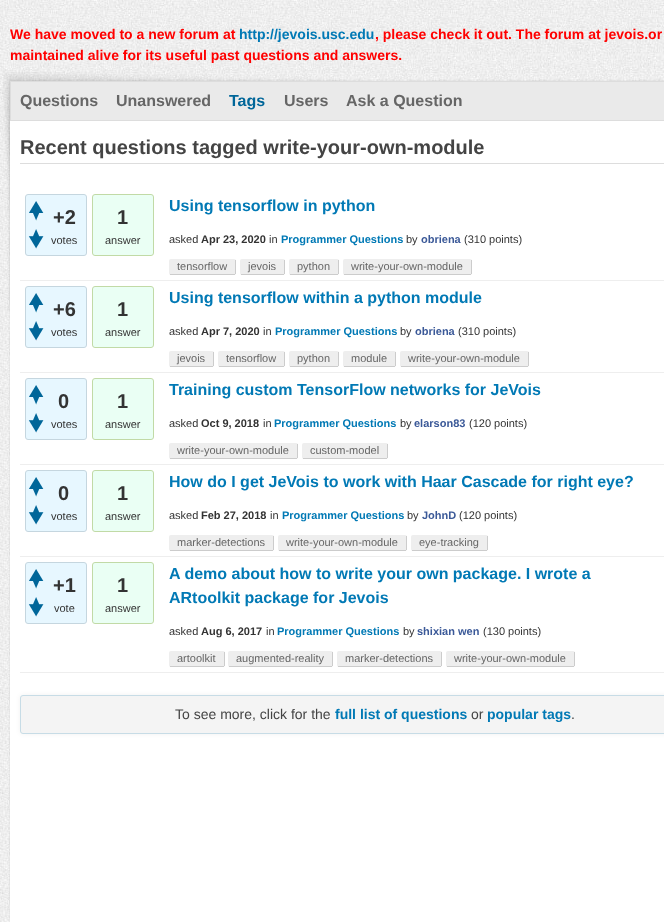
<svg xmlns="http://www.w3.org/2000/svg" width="664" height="922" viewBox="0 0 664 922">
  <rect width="100%" height="100%" fill="rgb(255,255,255)"/>
  <image x="0" y="0" width="664" height="922" href="pic1.png"/>
  <text x="10" y="39" font-family="Liberation Sans" font-size="14" font-weight="bold" fill="rgb(255,0,0)">We have moved to a new forum at</text>
  <text x="239" y="39" font-family="Liberation Sans" font-size="14" font-weight="bold" fill="rgb(1,121,181)">http://jevois.usc.edu</text>
  <g font-family="Liberation Sans" font-size="14" font-weight="bold" fill="rgb(255,0,0)">
    <text x="375" y="39">, please check it out. The forum at jevois.or</text>
    <text x="10" y="60">maintained alive for its useful past questions and answers.</text>
  </g>
  <image x="3" y="72" width="335" height="239" href="pic2.png"/>
  <rect x="10" y="81" width="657" height="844" fill="rgba(0,0,0,0.1)" filter="blur(1px)"/>
  <rect x="10" y="121" width="654" height="801" fill="rgb(255,255,255)"/>
  <rect x="10.5" y="81.5" width="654" height="39" fill="rgb(234,234,234)" stroke="rgb(221,221,221)"/>
  <g font-family="Liberation Sans" font-size="16" font-weight="bold" fill="rgb(102,102,102)">
    <text x="20" y="106">Questions</text>
    <text x="116" y="106">Unanswered</text>
  </g>
  <text x="229" y="106" font-family="Liberation Sans" font-size="16" font-weight="bold" fill="rgb(0,102,153)">Tags</text>
  <g font-family="Liberation Sans" font-size="16" font-weight="bold" fill="rgb(102,102,102)">
    <text x="284" y="106">Users</text>
    <text x="346" y="106">Ask a Question</text>
  </g>
  <rect x="20" y="163" width="644" height="1" fill="rgb(221,221,221)"/>
  <text x="20" y="154" font-family="Liberation Sans" font-size="20" font-weight="bold" fill="rgb(68,68,68)">Recent questions tagged write-your-own-module</text>
  <rect x="20" y="280" width="644" height="1" fill="rgb(238,238,238)"/>
  <rect x="25.5" y="194.5" width="61" height="61" rx="2.5" fill="rgb(231,247,255)" stroke="rgb(197,214,223)"/>
  <image x="29" y="201" width="15" height="20" href="pic3.png"/>
  <image x="28" y="229" width="16" height="20" href="pic4.png"/>
  <text x="53" y="224" font-family="Liberation Sans" font-size="20" font-weight="bold" fill="rgb(51,51,51)">+2</text>
  <text x="51" y="244" font-family="Liberation Sans" font-size="11" fill="rgb(51,51,51)">votes</text>
  <rect x="92.5" y="194.5" width="61" height="61" rx="2.5" fill="rgb(234,255,244)" stroke="rgb(193,218,166)"/>
  <text x="117" y="224" font-family="Liberation Sans" font-size="20" font-weight="bold" fill="rgb(51,51,51)">1</text>
  <text x="105" y="244" font-family="Liberation Sans" font-size="11" fill="rgb(51,51,51)">answer</text>
  <text x="169" y="211" font-family="Liberation Sans" font-size="16" font-weight="bold" fill="rgb(1,121,181)">Using tensorflow in python</text>
  <text x="169" y="243" font-family="Liberation Sans" font-size="11" fill="rgb(51,51,51)">asked</text>
  <text x="201" y="243" font-family="Liberation Sans" font-size="11" font-weight="bold" fill="rgb(51,51,51)">Apr 23, 2020</text>
  <text x="269" y="243" font-family="Liberation Sans" font-size="11" fill="rgb(51,51,51)">in</text>
  <text x="281" y="243" font-family="Liberation Sans" font-size="11" font-weight="bold" fill="rgb(1,121,181)">Programmer Questions</text>
  <text x="406" y="243" font-family="Liberation Sans" font-size="11" fill="rgb(51,51,51)">by</text>
  <text x="421" y="243" font-family="Liberation Sans" font-size="11" font-weight="bold" fill="rgb(59,89,152)">obriena</text>
  <text x="464" y="243" font-family="Liberation Sans" font-size="11" fill="rgb(51,51,51)">(310 points)</text>
  <rect x="169" y="259" width="67" height="16" rx="2" fill="rgb(238,238,238)"/>
  <rect x="235" y="260" width="1" height="14" fill="rgb(204,204,204)"/>
  <rect x="170" y="274" width="65" height="1" fill="rgb(204,204,204)"/>
  <text x="177" y="270" font-family="Liberation Sans" font-size="11" fill="rgb(102,102,102)">tensorflow</text>
  <rect x="240" y="259" width="45" height="16" rx="2" fill="rgb(238,238,238)"/>
  <rect x="284" y="260" width="1" height="14" fill="rgb(204,204,204)"/>
  <rect x="241" y="274" width="43" height="1" fill="rgb(204,204,204)"/>
  <text x="248" y="270" font-family="Liberation Sans" font-size="11" fill="rgb(102,102,102)">jevois</text>
  <rect x="289" y="259" width="50" height="16" rx="2" fill="rgb(238,238,238)"/>
  <rect x="338" y="260" width="1" height="14" fill="rgb(204,204,204)"/>
  <rect x="290" y="274" width="48" height="1" fill="rgb(204,204,204)"/>
  <text x="297" y="270" font-family="Liberation Sans" font-size="11" fill="rgb(102,102,102)">python</text>
  <rect x="343" y="259" width="129" height="16" rx="2" fill="rgb(238,238,238)"/>
  <rect x="471" y="260" width="1" height="14" fill="rgb(204,204,204)"/>
  <rect x="344" y="274" width="127" height="1" fill="rgb(204,204,204)"/>
  <text x="351" y="270" font-family="Liberation Sans" font-size="11" fill="rgb(102,102,102)">write-your-own-module</text>
  <rect x="20" y="372" width="644" height="1" fill="rgb(238,238,238)"/>
  <rect x="25.5" y="286.5" width="61" height="61" rx="2.5" fill="rgb(231,247,255)" stroke="rgb(197,214,223)"/>
  <image x="29" y="293" width="15" height="20" href="pic3.png"/>
  <image x="28" y="321" width="16" height="20" href="pic4.png"/>
  <text x="53" y="316" font-family="Liberation Sans" font-size="20" font-weight="bold" fill="rgb(51,51,51)">+6</text>
  <text x="51" y="336" font-family="Liberation Sans" font-size="11" fill="rgb(51,51,51)">votes</text>
  <rect x="92.5" y="286.5" width="61" height="61" rx="2.5" fill="rgb(234,255,244)" stroke="rgb(193,218,166)"/>
  <text x="117" y="316" font-family="Liberation Sans" font-size="20" font-weight="bold" fill="rgb(51,51,51)">1</text>
  <text x="105" y="336" font-family="Liberation Sans" font-size="11" fill="rgb(51,51,51)">answer</text>
  <text x="169" y="303" font-family="Liberation Sans" font-size="16" font-weight="bold" fill="rgb(1,121,181)">Using tensorflow within a python module</text>
  <text x="169" y="335" font-family="Liberation Sans" font-size="11" fill="rgb(51,51,51)">asked</text>
  <text x="201" y="335" font-family="Liberation Sans" font-size="11" font-weight="bold" fill="rgb(51,51,51)">Apr 7, 2020</text>
  <text x="263" y="335" font-family="Liberation Sans" font-size="11" fill="rgb(51,51,51)">in</text>
  <text x="275" y="335" font-family="Liberation Sans" font-size="11" font-weight="bold" fill="rgb(1,121,181)">Programmer Questions</text>
  <text x="400" y="335" font-family="Liberation Sans" font-size="11" fill="rgb(51,51,51)">by</text>
  <text x="415" y="335" font-family="Liberation Sans" font-size="11" font-weight="bold" fill="rgb(59,89,152)">obriena</text>
  <text x="458" y="335" font-family="Liberation Sans" font-size="11" fill="rgb(51,51,51)">(310 points)</text>
  <rect x="169" y="351" width="45" height="16" rx="2" fill="rgb(238,238,238)"/>
  <rect x="213" y="352" width="1" height="14" fill="rgb(204,204,204)"/>
  <rect x="170" y="366" width="43" height="1" fill="rgb(204,204,204)"/>
  <text x="177" y="362" font-family="Liberation Sans" font-size="11" fill="rgb(102,102,102)">jevois</text>
  <rect x="218" y="351" width="67" height="16" rx="2" fill="rgb(238,238,238)"/>
  <rect x="284" y="352" width="1" height="14" fill="rgb(204,204,204)"/>
  <rect x="219" y="366" width="65" height="1" fill="rgb(204,204,204)"/>
  <text x="226" y="362" font-family="Liberation Sans" font-size="11" fill="rgb(102,102,102)">tensorflow</text>
  <rect x="289" y="351" width="50" height="16" rx="2" fill="rgb(238,238,238)"/>
  <rect x="338" y="352" width="1" height="14" fill="rgb(204,204,204)"/>
  <rect x="290" y="366" width="48" height="1" fill="rgb(204,204,204)"/>
  <text x="297" y="362" font-family="Liberation Sans" font-size="11" fill="rgb(102,102,102)">python</text>
  <rect x="343" y="351" width="53" height="16" rx="2" fill="rgb(238,238,238)"/>
  <rect x="395" y="352" width="1" height="14" fill="rgb(204,204,204)"/>
  <rect x="344" y="366" width="51" height="1" fill="rgb(204,204,204)"/>
  <text x="351" y="362" font-family="Liberation Sans" font-size="11" fill="rgb(102,102,102)">module</text>
  <rect x="400" y="351" width="129" height="16" rx="2" fill="rgb(238,238,238)"/>
  <rect x="528" y="352" width="1" height="14" fill="rgb(204,204,204)"/>
  <rect x="401" y="366" width="127" height="1" fill="rgb(204,204,204)"/>
  <text x="408" y="362" font-family="Liberation Sans" font-size="11" fill="rgb(102,102,102)">write-your-own-module</text>
  <rect x="20" y="464" width="644" height="1" fill="rgb(238,238,238)"/>
  <rect x="25.5" y="378.5" width="61" height="61" rx="2.5" fill="rgb(231,247,255)" stroke="rgb(197,214,223)"/>
  <image x="29" y="385" width="15" height="20" href="pic3.png"/>
  <image x="28" y="413" width="16" height="20" href="pic4.png"/>
  <text x="58" y="408" font-family="Liberation Sans" font-size="20" font-weight="bold" fill="rgb(51,51,51)">0</text>
  <text x="51" y="428" font-family="Liberation Sans" font-size="11" fill="rgb(51,51,51)">votes</text>
  <rect x="92.5" y="378.5" width="61" height="61" rx="2.5" fill="rgb(234,255,244)" stroke="rgb(193,218,166)"/>
  <text x="117" y="408" font-family="Liberation Sans" font-size="20" font-weight="bold" fill="rgb(51,51,51)">1</text>
  <text x="105" y="428" font-family="Liberation Sans" font-size="11" fill="rgb(51,51,51)">answer</text>
  <text x="169" y="395" font-family="Liberation Sans" font-size="16" font-weight="bold" fill="rgb(1,121,181)">Training custom TensorFlow networks for JeVois</text>
  <text x="169" y="427" font-family="Liberation Sans" font-size="11" fill="rgb(51,51,51)">asked</text>
  <text x="201" y="427" font-family="Liberation Sans" font-size="11" font-weight="bold" fill="rgb(51,51,51)">Oct 9, 2018</text>
  <text x="263" y="427" font-family="Liberation Sans" font-size="11" fill="rgb(51,51,51)">in</text>
  <text x="274" y="427" font-family="Liberation Sans" font-size="11" font-weight="bold" fill="rgb(1,121,181)">Programmer Questions</text>
  <text x="400" y="427" font-family="Liberation Sans" font-size="11" fill="rgb(51,51,51)">by</text>
  <text x="414" y="427" font-family="Liberation Sans" font-size="11" font-weight="bold" fill="rgb(59,89,152)">elarson83</text>
  <text x="469" y="427" font-family="Liberation Sans" font-size="11" fill="rgb(51,51,51)">(120 points)</text>
  <rect x="169" y="443" width="129" height="16" rx="2" fill="rgb(238,238,238)"/>
  <rect x="297" y="444" width="1" height="14" fill="rgb(204,204,204)"/>
  <rect x="170" y="458" width="127" height="1" fill="rgb(204,204,204)"/>
  <text x="177" y="454" font-family="Liberation Sans" font-size="11" fill="rgb(102,102,102)">write-your-own-module</text>
  <rect x="302" y="443" width="86" height="16" rx="2" fill="rgb(238,238,238)"/>
  <rect x="387" y="444" width="1" height="14" fill="rgb(204,204,204)"/>
  <rect x="303" y="458" width="84" height="1" fill="rgb(204,204,204)"/>
  <text x="310" y="454" font-family="Liberation Sans" font-size="11" fill="rgb(102,102,102)">custom-model</text>
  <rect x="20" y="556" width="644" height="1" fill="rgb(238,238,238)"/>
  <rect x="25.5" y="470.5" width="61" height="61" rx="2.5" fill="rgb(231,247,255)" stroke="rgb(197,214,223)"/>
  <image x="29" y="477" width="15" height="20" href="pic3.png"/>
  <image x="28" y="505" width="16" height="20" href="pic4.png"/>
  <text x="58" y="500" font-family="Liberation Sans" font-size="20" font-weight="bold" fill="rgb(51,51,51)">0</text>
  <text x="51" y="520" font-family="Liberation Sans" font-size="11" fill="rgb(51,51,51)">votes</text>
  <rect x="92.5" y="470.5" width="61" height="61" rx="2.5" fill="rgb(234,255,244)" stroke="rgb(193,218,166)"/>
  <text x="117" y="500" font-family="Liberation Sans" font-size="20" font-weight="bold" fill="rgb(51,51,51)">1</text>
  <text x="105" y="520" font-family="Liberation Sans" font-size="11" fill="rgb(51,51,51)">answer</text>
  <text x="169" y="487" font-family="Liberation Sans" font-size="16" font-weight="bold" fill="rgb(1,121,181)">How do I get JeVois to work with Haar Cascade for right eye?</text>
  <text x="169" y="519" font-family="Liberation Sans" font-size="11" fill="rgb(51,51,51)">asked</text>
  <text x="201" y="519" font-family="Liberation Sans" font-size="11" font-weight="bold" fill="rgb(51,51,51)">Feb 27, 2018</text>
  <text x="270" y="519" font-family="Liberation Sans" font-size="11" fill="rgb(51,51,51)">in</text>
  <text x="282" y="519" font-family="Liberation Sans" font-size="11" font-weight="bold" fill="rgb(1,121,181)">Programmer Questions</text>
  <text x="407" y="519" font-family="Liberation Sans" font-size="11" fill="rgb(51,51,51)">by</text>
  <text x="422" y="519" font-family="Liberation Sans" font-size="11" font-weight="bold" fill="rgb(59,89,152)">JohnD</text>
  <text x="459" y="519" font-family="Liberation Sans" font-size="11" fill="rgb(51,51,51)">(120 points)</text>
  <rect x="169" y="535" width="105" height="16" rx="2" fill="rgb(238,238,238)"/>
  <rect x="273" y="536" width="1" height="14" fill="rgb(204,204,204)"/>
  <rect x="170" y="550" width="103" height="1" fill="rgb(204,204,204)"/>
  <text x="177" y="546" font-family="Liberation Sans" font-size="11" fill="rgb(102,102,102)">marker-detections</text>
  <rect x="278" y="535" width="129" height="16" rx="2" fill="rgb(238,238,238)"/>
  <rect x="406" y="536" width="1" height="14" fill="rgb(204,204,204)"/>
  <rect x="279" y="550" width="127" height="1" fill="rgb(204,204,204)"/>
  <text x="286" y="546" font-family="Liberation Sans" font-size="11" fill="rgb(102,102,102)">write-your-own-module</text>
  <rect x="411" y="535" width="77" height="16" rx="2" fill="rgb(238,238,238)"/>
  <rect x="487" y="536" width="1" height="14" fill="rgb(204,204,204)"/>
  <rect x="412" y="550" width="75" height="1" fill="rgb(204,204,204)"/>
  <text x="419" y="546" font-family="Liberation Sans" font-size="11" fill="rgb(102,102,102)">eye-tracking</text>
  <rect x="20" y="672" width="644" height="1" fill="rgb(238,238,238)"/>
  <rect x="25.5" y="562.5" width="61" height="61" rx="2.5" fill="rgb(231,247,255)" stroke="rgb(197,214,223)"/>
  <image x="29" y="569" width="15" height="20" href="pic3.png"/>
  <image x="28" y="597" width="16" height="20" href="pic4.png"/>
  <text x="53" y="592" font-family="Liberation Sans" font-size="20" font-weight="bold" fill="rgb(51,51,51)">+1</text>
  <text x="54" y="612" font-family="Liberation Sans" font-size="11" fill="rgb(51,51,51)">vote</text>
  <rect x="92.5" y="562.5" width="61" height="61" rx="2.5" fill="rgb(234,255,244)" stroke="rgb(193,218,166)"/>
  <text x="117" y="592" font-family="Liberation Sans" font-size="20" font-weight="bold" fill="rgb(51,51,51)">1</text>
  <text x="105" y="612" font-family="Liberation Sans" font-size="11" fill="rgb(51,51,51)">answer</text>
  <g font-family="Liberation Sans" font-size="16" font-weight="bold" fill="rgb(1,121,181)">
    <text>
      <tspan x="169" y="579">A demo about how to write your own package. I wrote a</tspan>
      <tspan x="169" y="603">ARtoolkit package for Jevois</tspan>
    </text>
  </g>
  <text x="169" y="635" font-family="Liberation Sans" font-size="11" fill="rgb(51,51,51)">asked</text>
  <text x="201" y="635" font-family="Liberation Sans" font-size="11" font-weight="bold" fill="rgb(51,51,51)">Aug 6, 2017</text>
  <text x="266" y="635" font-family="Liberation Sans" font-size="11" fill="rgb(51,51,51)">in</text>
  <text x="277" y="635" font-family="Liberation Sans" font-size="11" font-weight="bold" fill="rgb(1,121,181)">Programmer Questions</text>
  <text x="403" y="635" font-family="Liberation Sans" font-size="11" fill="rgb(51,51,51)">by</text>
  <text x="417" y="635" font-family="Liberation Sans" font-size="11" font-weight="bold" fill="rgb(59,89,152)">shixian wen</text>
  <text x="483" y="635" font-family="Liberation Sans" font-size="11" fill="rgb(51,51,51)">(130 points)</text>
  <rect x="169" y="651" width="56" height="16" rx="2" fill="rgb(238,238,238)"/>
  <rect x="224" y="652" width="1" height="14" fill="rgb(204,204,204)"/>
  <rect x="170" y="666" width="54" height="1" fill="rgb(204,204,204)"/>
  <text x="177" y="662" font-family="Liberation Sans" font-size="11" fill="rgb(102,102,102)">artoolkit</text>
  <rect x="228" y="651" width="105" height="16" rx="2" fill="rgb(238,238,238)"/>
  <rect x="332" y="652" width="1" height="14" fill="rgb(204,204,204)"/>
  <rect x="229" y="666" width="103" height="1" fill="rgb(204,204,204)"/>
  <text x="236" y="662" font-family="Liberation Sans" font-size="11" fill="rgb(102,102,102)">augmented-reality</text>
  <rect x="337" y="651" width="105" height="16" rx="2" fill="rgb(238,238,238)"/>
  <rect x="441" y="652" width="1" height="14" fill="rgb(204,204,204)"/>
  <rect x="338" y="666" width="103" height="1" fill="rgb(204,204,204)"/>
  <text x="345" y="662" font-family="Liberation Sans" font-size="11" fill="rgb(102,102,102)">marker-detections</text>
  <rect x="446" y="651" width="129" height="16" rx="2" fill="rgb(238,238,238)"/>
  <rect x="574" y="652" width="1" height="14" fill="rgb(204,204,204)"/>
  <rect x="447" y="666" width="127" height="1" fill="rgb(204,204,204)"/>
  <text x="454" y="662" font-family="Liberation Sans" font-size="11" fill="rgb(102,102,102)">write-your-own-module</text>
  <rect x="20" y="695" width="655" height="39" rx="3" fill="rgba(0,0,0,0.05)" filter="blur(2.5px)"/>
  <rect x="20.5" y="695.5" width="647" height="38" rx="2.5" fill="rgb(244,244,244)" stroke="rgb(199,220,230)"/>
  <text x="175" y="719" font-family="Liberation Sans" font-size="14" fill="rgb(68,68,68)">To see more, click for the</text>
  <text x="335" y="719" font-family="Liberation Sans" font-size="14" font-weight="bold" fill="rgb(1,121,181)">full list of questions</text>
  <text x="471" y="719" font-family="Liberation Sans" font-size="14" fill="rgb(68,68,68)">or</text>
  <text x="487" y="719" font-family="Liberation Sans" font-size="14" font-weight="bold" fill="rgb(1,121,181)">popular tags</text>
  <text x="571" y="719" font-family="Liberation Sans" font-size="14" fill="rgb(68,68,68)">.</text>
</svg>
